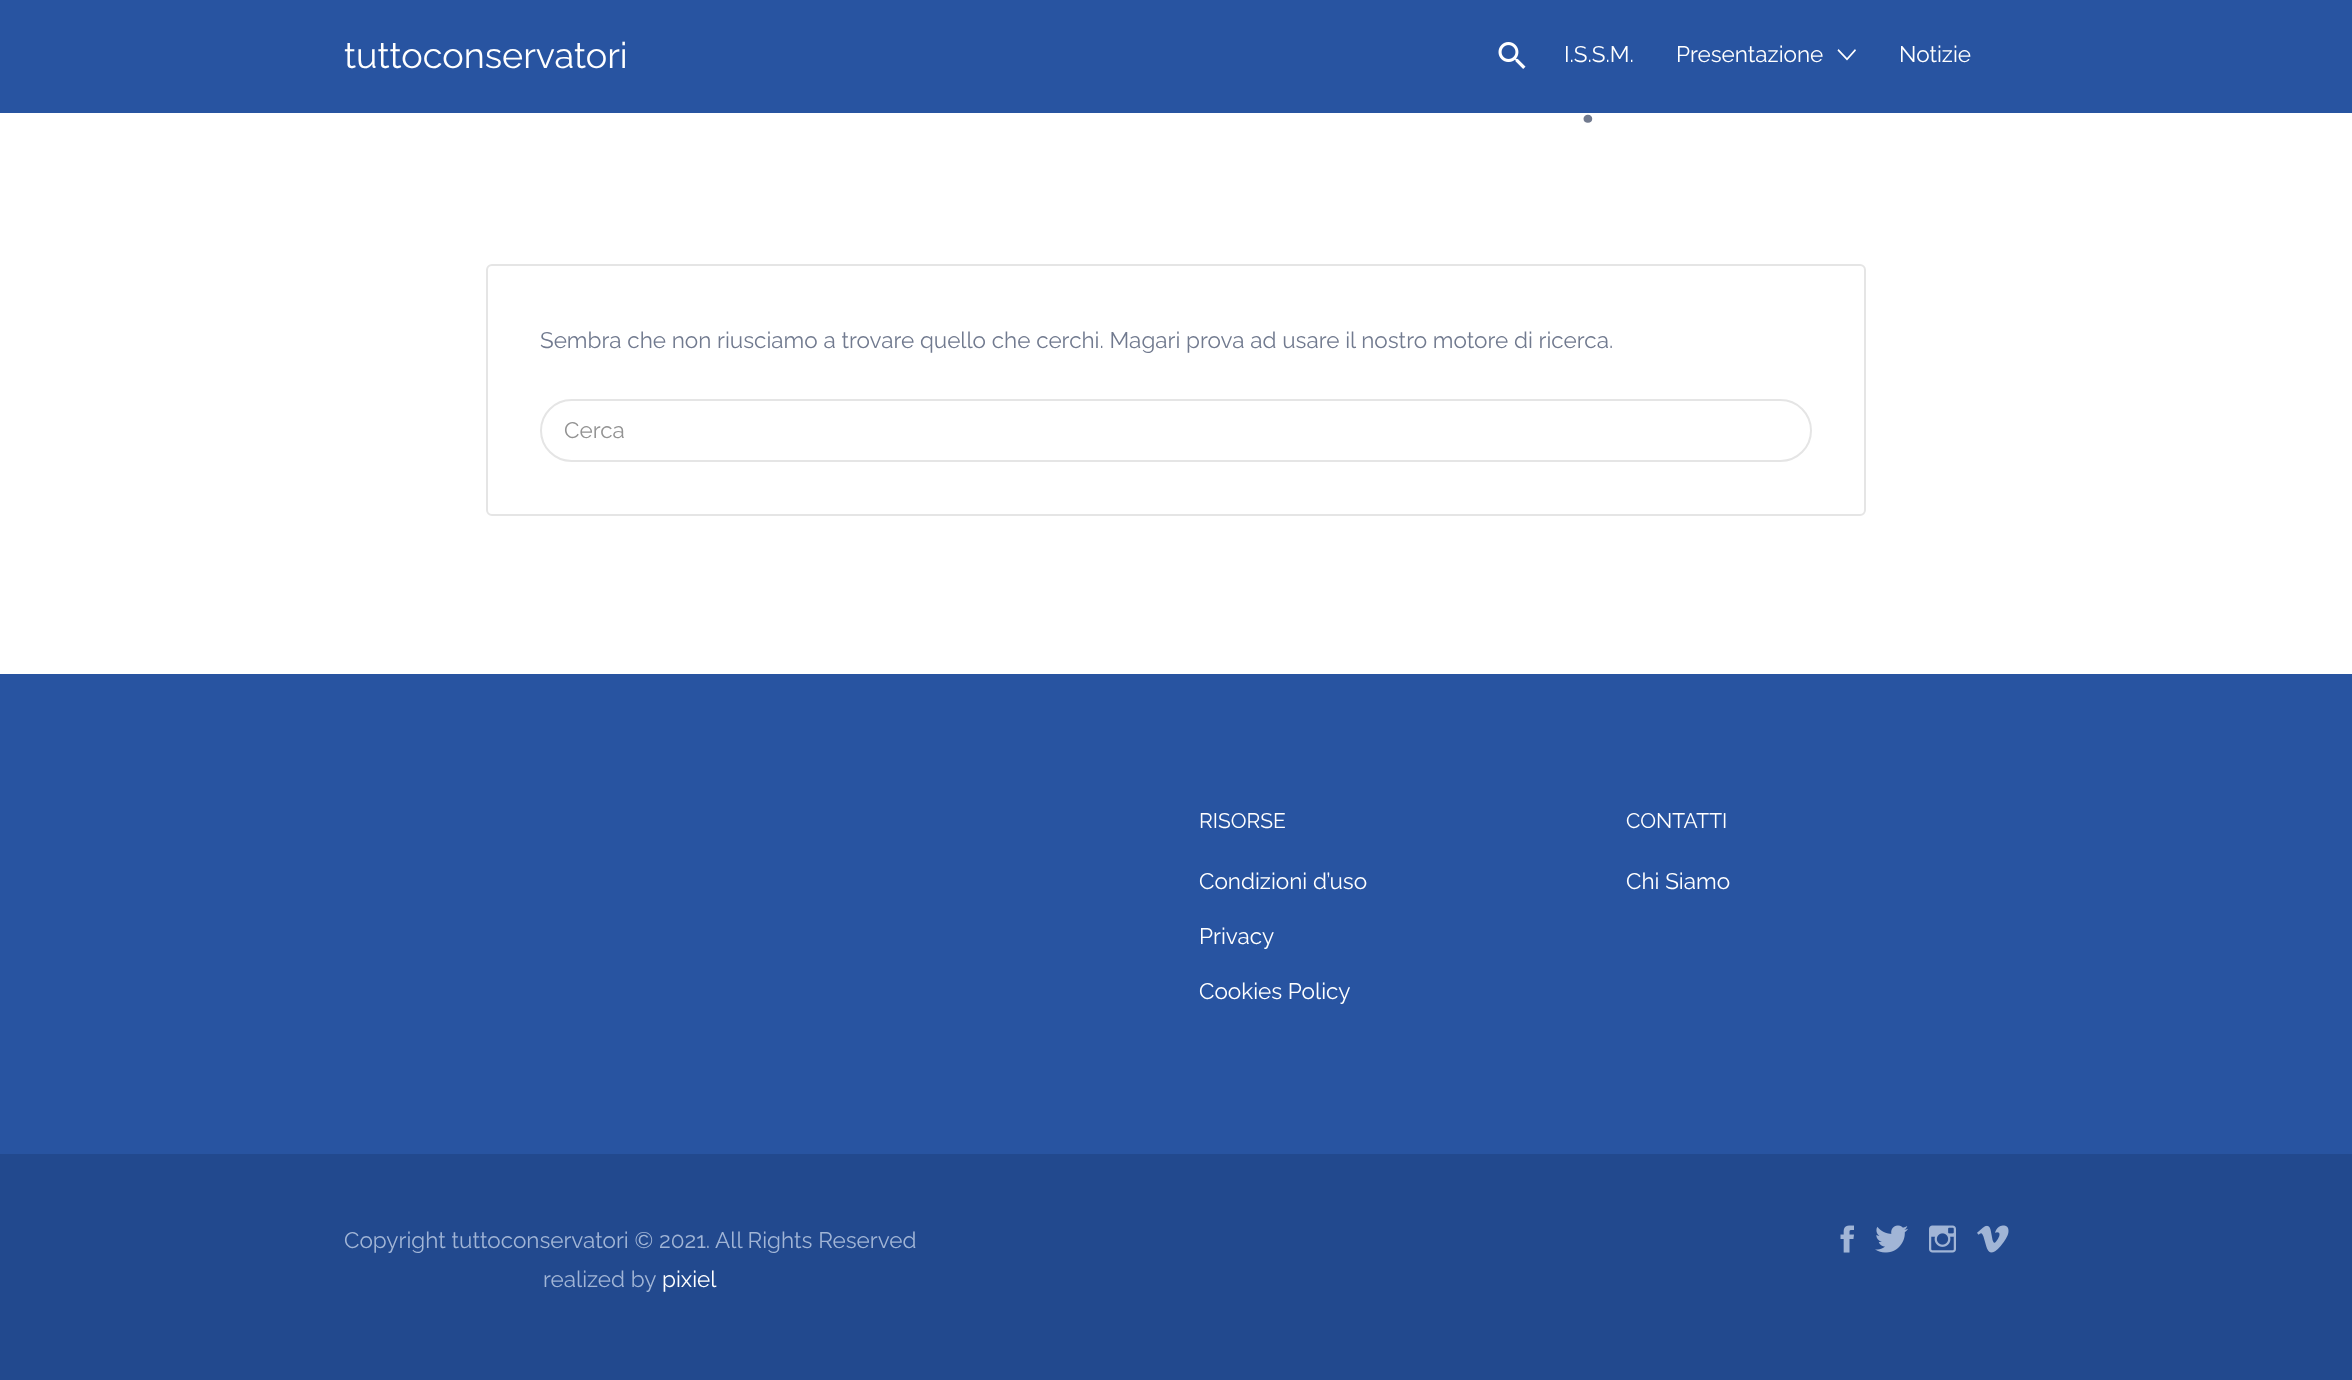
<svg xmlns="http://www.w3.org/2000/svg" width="2352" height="1380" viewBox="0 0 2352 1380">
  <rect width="100%" height="100%" fill="rgb(255,255,255)"/>
  <rect x="0" y="0" width="2352" height="113" fill="rgb(40,84,161)"/>
  <text x="344" y="68" font-family="Raleway" font-size="36" fill="rgb(255,255,255)">tuttoconservatori</text>
  <image x="1498" y="42" width="28" height="27" href="pic1.png"/>
  <g font-family="Raleway" font-size="22.5" fill="rgb(255,255,255)">
    <text x="1564" y="62">I.S.S.M.</text>
    <text x="1676" y="62">Presentazione</text>
  </g>
  <path d="M1855 49L1856 50.5L1847 60.5L1837.5 50.5L1838.5 49L1847 58Z" fill="rgb(255,255,255)"/>
  <text x="1899" y="62" font-family="Raleway" font-size="22.5" fill="rgb(255,255,255)">Notizie</text>
  <text x="1581" y="122" font-family="Playfair Display" font-size="51" font-weight="bold" fill="rgb(113,122,143)">.</text>
  <rect x="487" y="265" width="1378" height="250" rx="5" fill="none" stroke="rgb(229,229,229)" stroke-width="2"/>
  <text x="540" y="348" font-family="Raleway" font-size="22.5" fill="rgb(113,122,143)">Sembra che non riusciamo a trovare quello che cerchi. Magari prova ad usare il nostro motore di ricerca.</text>
  <rect x="541" y="400" width="1270" height="61" rx="30.5" fill="none" stroke="rgb(229,229,229)" stroke-width="2"/>
  <text x="564" y="438" font-family="Raleway" font-size="22.5" fill="rgb(147,147,147)">Cerca</text>
  <rect x="0" y="674" width="2352" height="480" fill="rgb(40,84,161)"/>
  <text x="1199" y="828" font-family="Raleway" font-size="21" fill="rgb(255,255,255)">RISORSE</text>
  <g font-family="Raleway" font-size="22.5" fill="rgb(255,255,255)">
    <text x="1199" y="889">Condizioni d’uso</text>
    <text x="1199" y="944">Privacy</text>
    <text x="1199" y="999">Cookies Policy</text>
  </g>
  <text x="1626" y="828" font-family="Raleway" font-size="21" fill="rgb(255,255,255)">CONTATTI</text>
  <text x="1626" y="889" font-family="Raleway" font-size="22.5" fill="rgb(255,255,255)">Chi Siamo</text>
  <rect x="0" y="1154" width="2352" height="226" fill="rgb(34,73,142)"/>
  <g font-family="Raleway" font-size="22.5" fill="rgb(161,181,214)">
    <text x="344" y="1248">Copyright tuttoconservatori © 2021. All Rights Reserved</text>
    <text x="543" y="1287">realized by</text>
  </g>
  <text x="662" y="1287" font-family="Raleway" font-size="22.5" fill="rgb(255,255,255)">pixiel</text>
  <image x="1840" y="1225" width="14" height="28" href="pic2.png"/>
  <image x="1875" y="1225" width="33" height="28" href="pic3.png"/>
  <image x="1929" y="1225" width="27" height="28" href="pic4.png"/>
  <image x="1977" y="1225" width="32" height="28" href="pic5.png"/>
</svg>
